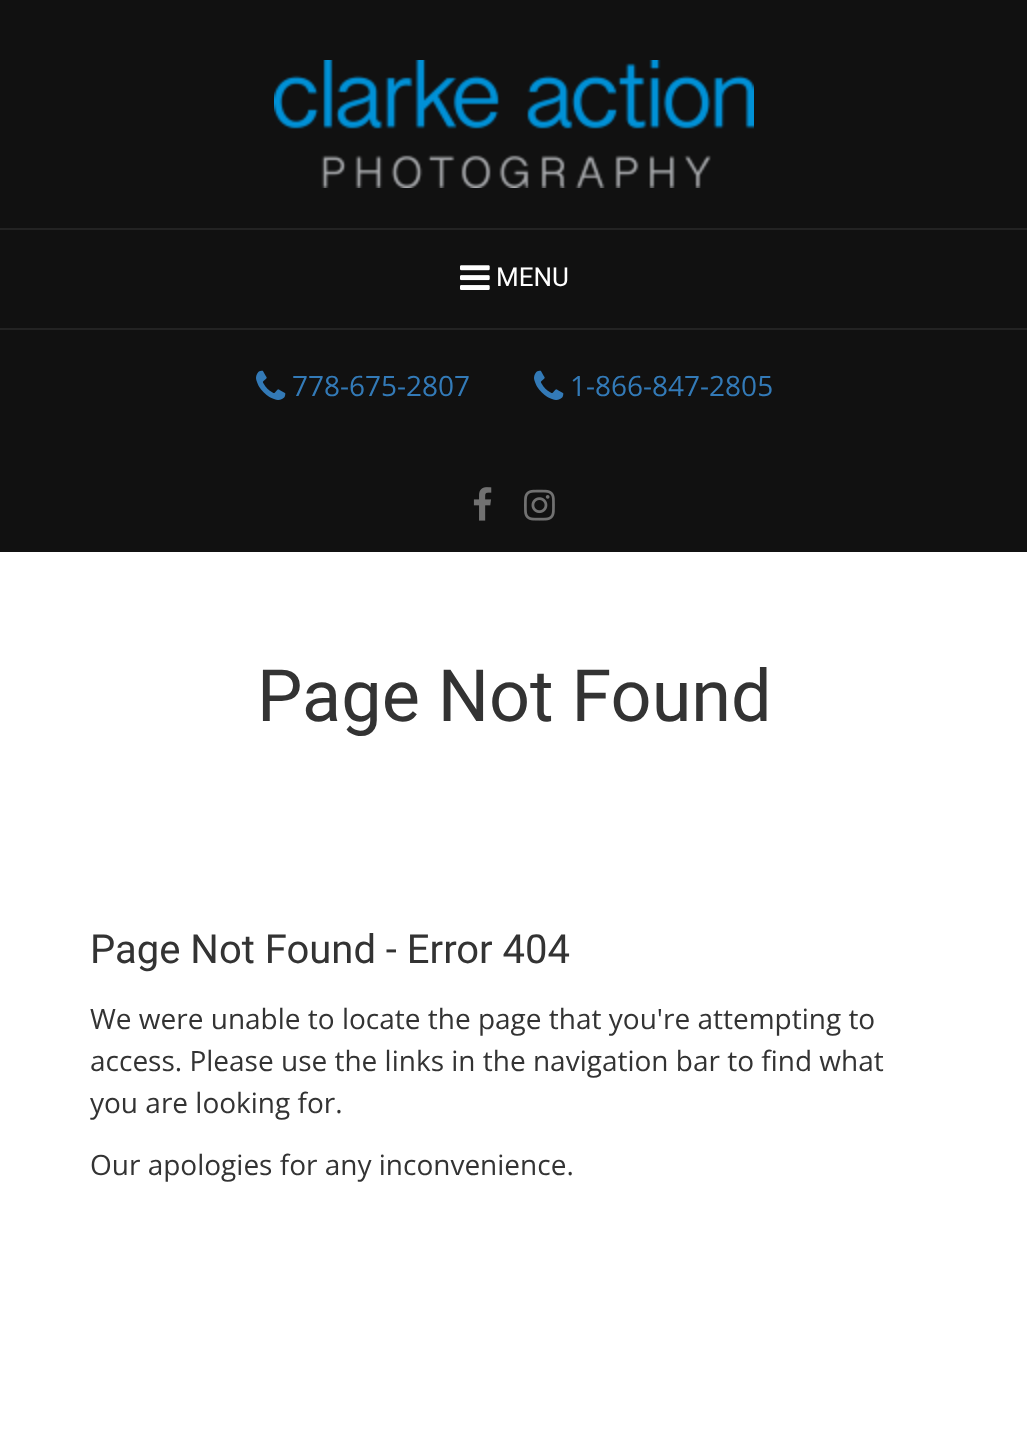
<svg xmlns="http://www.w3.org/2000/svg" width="1027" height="1455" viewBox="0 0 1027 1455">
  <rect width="100%" height="100%" fill="rgb(255,255,255)"/>
  <rect x="0" y="0" width="1027" height="552" fill="rgb(17,17,17)"/>
  <image x="274" y="60" width="480" height="128" href="pic1.png"/>
  <rect x="0" y="228" width="1027" height="2" fill="rgb(35,35,35)"/>
  <rect x="0" y="328" width="1027" height="2" fill="rgb(35,35,35)"/>
  <image x="460" y="265" width="30" height="25" href="pic2.png"/>
  <text x="496" y="286" font-family="Roboto" font-size="26" fill="rgb(255,255,255)">MENU</text>
  <image x="256" y="370" width="30" height="30" href="pic3.png"/>
  <text x="292" y="396" font-family="Open Sans" font-size="28" fill="rgb(51,122,183)">778-675-2807</text>
  <image x="534" y="370" width="30" height="30" href="pic3.png"/>
  <text x="570" y="396" font-family="Open Sans" font-size="28" fill="rgb(51,122,183)">1-866-847-2805</text>
  <image x="473" y="487" width="19" height="34" href="pic4.png"/>
  <image x="524" y="489" width="31" height="32" href="pic5.png"/>
  <text x="257" y="721" font-family="Roboto" font-size="72" fill="rgb(51,51,51)">Page Not Found</text>
  <text x="90" y="963" font-family="Roboto" font-size="40" fill="rgb(51,51,51)">Page Not Found - Error 404</text>
  <g font-family="Open Sans" font-size="28" fill="rgb(51,51,51)">
    <text>
      <tspan x="90" y="1029">We were unable to locate the page that you're attempting to</tspan>
      <tspan x="90" y="1071">access. Please use the links in the navigation bar to find what</tspan>
      <tspan x="90" y="1113">you are looking for.</tspan>
    </text>
    <text x="90" y="1175">Our apologies for any inconvenience.</text>
  </g>
</svg>
